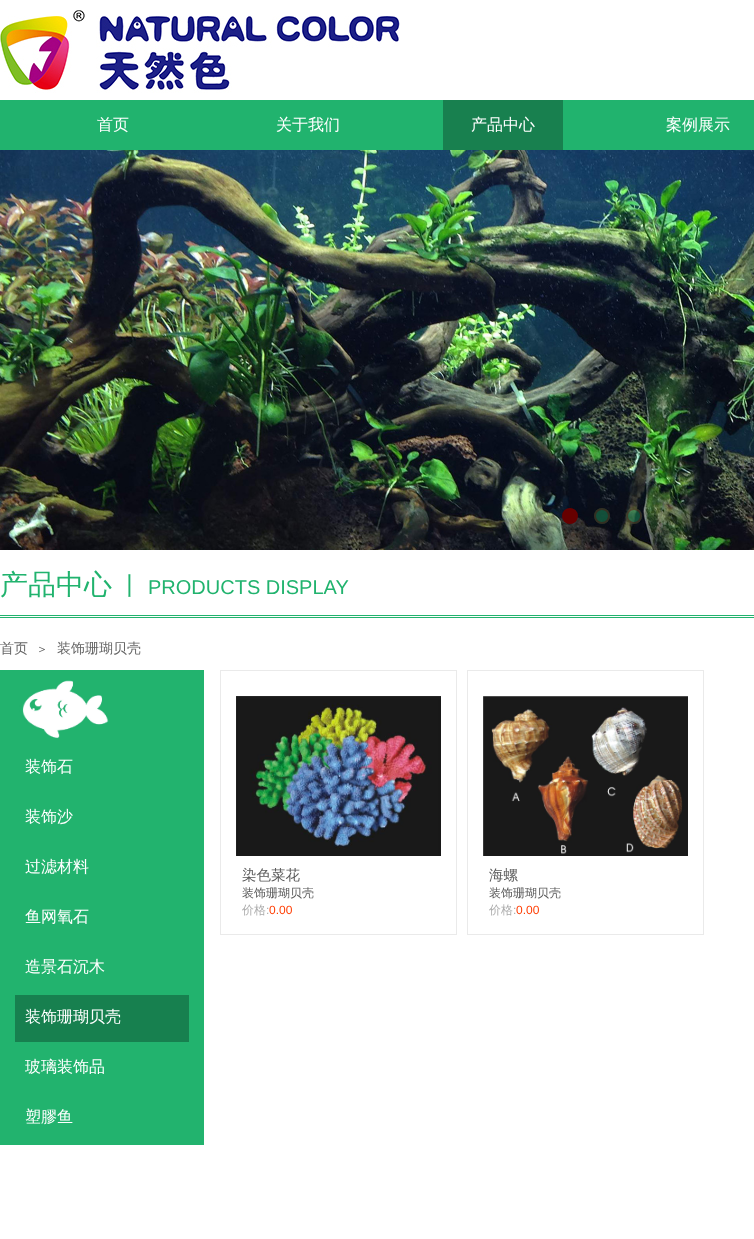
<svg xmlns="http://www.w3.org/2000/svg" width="754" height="1239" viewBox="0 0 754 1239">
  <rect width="100%" height="100%" fill="rgb(255,255,255)"/>
  <image x="0" y="10" width="400" height="83" href="pic1.png"/>
  <rect x="0" y="100" width="754" height="50" fill="rgb(33,179,110)"/>
  <g font-family="WenQuanYi Zen Hei" font-size="16" font-weight="500" fill="rgb(255,255,255)">
    <text x="97" y="130">首页</text>
    <text x="276" y="130">关于我们</text>
  </g>
  <rect x="443" y="100" width="120" height="50" fill="rgb(24,128,79)"/>
  <g font-family="WenQuanYi Zen Hei" font-size="16" font-weight="500" fill="rgb(255,255,255)">
    <text x="471" y="130">产品中心</text>
    <text x="666" y="130">案例展示</text>
  </g>
  <image x="0" y="150" width="754" height="400" href="pic2.png"/>
  <circle cx="570" cy="516" r="7" fill="rgb(102,0,0)" stroke="rgb(102,0,0)" stroke-width="2"/>
  <circle cx="602" cy="516" r="8" fill="rgba(33,179,110,0.4)"/>
  <circle cx="602" cy="516" r="7" fill="none" stroke="rgba(102,0,0,0.4)" stroke-width="2"/>
  <circle cx="634" cy="516" r="8" fill="rgba(33,179,110,0.4)"/>
  <circle cx="634" cy="516" r="7" fill="none" stroke="rgba(102,0,0,0.4)" stroke-width="2"/>
  <text x="0" y="594" font-family="WenQuanYi Zen Hei" font-size="28" font-weight="500" fill="rgb(33,179,110)">产品中心</text>
  <text x="118" y="594" font-family="WenQuanYi Zen Hei" font-size="24" font-weight="500" fill="rgb(33,179,110)">丨</text>
  <text x="148" y="594" font-family="Liberation Sans" font-size="20" fill="rgb(33,179,110)">PRODUCTS DISPLAY</text>
  <rect x="0" y="615" width="754" height="1" fill="rgb(33,179,110)"/>
  <rect x="0" y="617" width="754" height="1" fill="rgb(33,179,110)"/>
  <text x="0" y="653" font-family="WenQuanYi Zen Hei" font-size="14" font-weight="500" fill="rgb(102,102,102)">首页</text>
  <text x="36" y="653" font-family="WenQuanYi Zen Hei" font-size="12" font-weight="500" fill="rgb(90,90,90)">＞</text>
  <text x="57" y="653" font-family="WenQuanYi Zen Hei" font-size="14" font-weight="500" fill="rgb(102,102,102)">装饰珊瑚贝壳</text>
  <rect x="0" y="670" width="15" height="475" fill="rgb(34,179,110)"/>
  <image x="15" y="670" width="107" height="75" href="pic3.png"/>
  <rect x="122" y="670" width="82" height="75" fill="rgb(34,179,110)"/>
  <rect x="15" y="745" width="189" height="400" fill="rgb(34,179,110)"/>
  <g font-family="WenQuanYi Zen Hei" font-size="16" font-weight="500" fill="rgb(255,255,255)">
    <text x="25" y="772">装饰石</text>
    <text x="25" y="822">装饰沙</text>
    <text x="25" y="872">过滤材料</text>
    <text x="25" y="922">鱼网氧石</text>
    <text x="25" y="972">造景石沉木</text>
  </g>
  <rect x="15" y="995" width="174" height="47" fill="rgb(23,128,79)"/>
  <g font-family="WenQuanYi Zen Hei" font-size="16" font-weight="500" fill="rgb(255,255,255)">
    <text x="25" y="1022">装饰珊瑚贝壳</text>
    <text x="25" y="1072">玻璃装饰品</text>
    <text x="25" y="1122">塑膠鱼</text>
  </g>
  <rect x="220.5" y="670.5" width="236" height="264" fill="none" stroke="rgb(234,234,234)"/>
  <image x="236" y="696" width="205" height="160" href="pic4.png"/>
  <text x="242" y="880" font-family="WenQuanYi Zen Hei" font-size="14.5" font-weight="500" fill="rgb(90,90,90)">染色菜花</text>
  <text x="242" y="897" font-family="WenQuanYi Zen Hei" font-size="12" font-weight="500" fill="rgb(90,90,90)">装饰珊瑚贝壳</text>
  <text x="242" y="914" font-family="WenQuanYi Zen Hei" font-size="12" font-weight="500" fill="rgb(172,172,172)">价格</text>
  <text x="266" y="914" font-family="Liberation Sans" font-size="12" fill="rgb(172,172,172)">:</text>
  <text x="269" y="914" font-family="Liberation Sans" font-size="12" fill="rgb(255,60,0)">0.00</text>
  <rect x="467.5" y="670.5" width="236" height="264" fill="none" stroke="rgb(234,234,234)"/>
  <image x="483" y="696" width="205" height="160" href="pic5.png"/>
  <text x="489" y="880" font-family="WenQuanYi Zen Hei" font-size="14.5" font-weight="500" fill="rgb(90,90,90)">海螺</text>
  <text x="489" y="897" font-family="WenQuanYi Zen Hei" font-size="12" font-weight="500" fill="rgb(90,90,90)">装饰珊瑚贝壳</text>
  <text x="489" y="914" font-family="WenQuanYi Zen Hei" font-size="12" font-weight="500" fill="rgb(172,172,172)">价格</text>
  <text x="513" y="914" font-family="Liberation Sans" font-size="12" fill="rgb(172,172,172)">:</text>
  <text x="516" y="914" font-family="Liberation Sans" font-size="12" fill="rgb(255,60,0)">0.00</text>
</svg>
